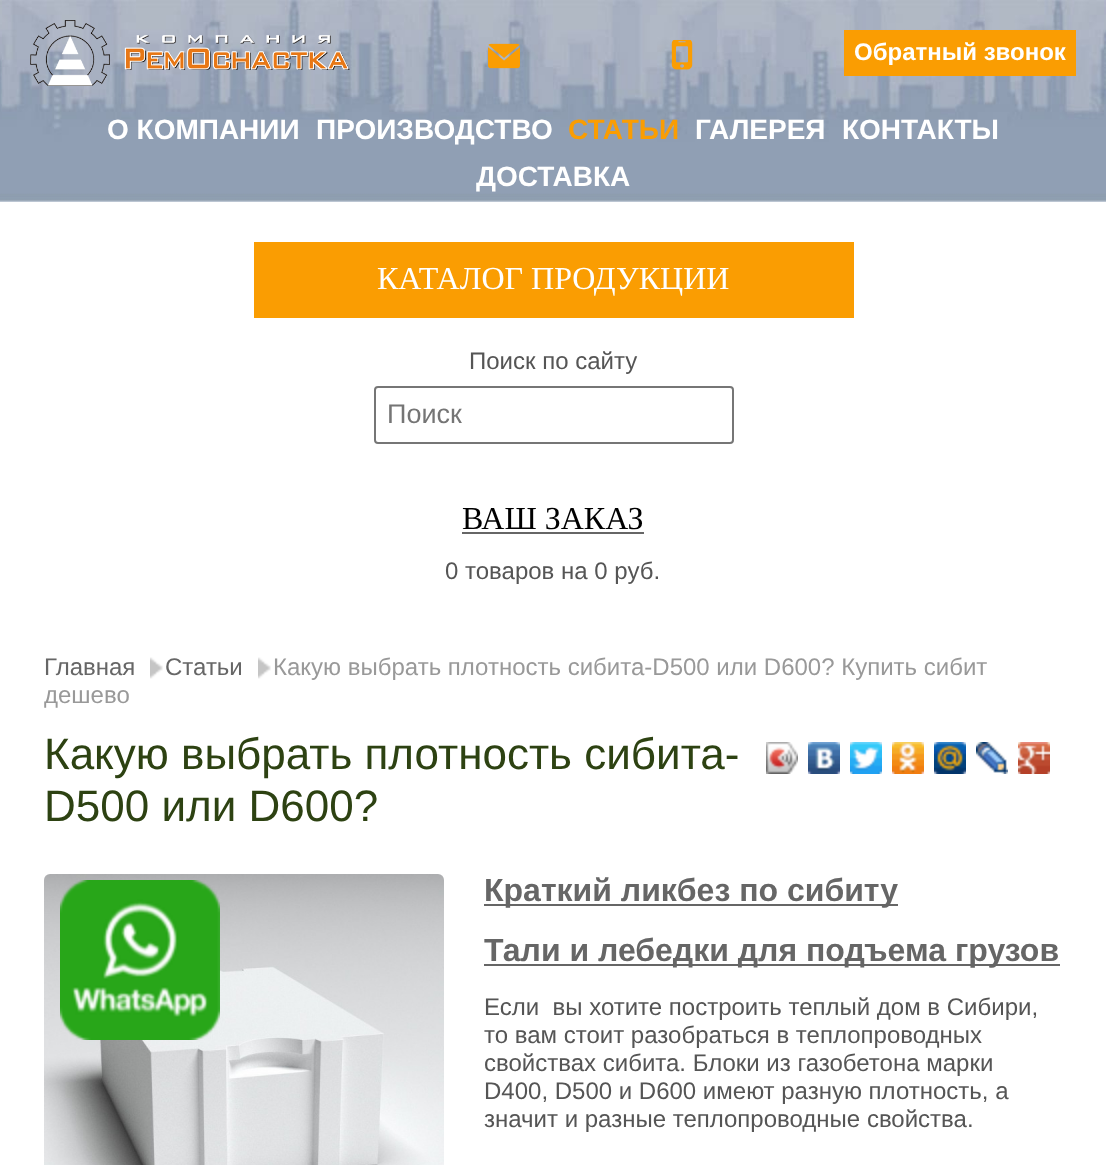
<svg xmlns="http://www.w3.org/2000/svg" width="1106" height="1165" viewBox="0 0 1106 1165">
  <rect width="100%" height="100%" fill="rgb(255,255,255)"/>
  <image x="0" y="0" width="1106" height="202" href="pic1.png"/>
  <image x="30" y="20" width="320" height="66" href="pic2.png"/>
  <image x="488" y="43" width="32" height="26" href="pic3.png"/>
  <image x="671" y="40" width="22" height="30" href="pic4.png"/>
  <rect x="844" y="30" width="232" height="46" fill="rgb(250,157,2)"/>
  <text x="854" y="60" font-family="Liberation Sans" font-size="24" font-weight="bold" fill="rgb(255,255,255)">Обратный звонок</text>
  <g font-family="Liberation Sans" font-size="28" font-weight="bold" fill="rgb(255,255,255)">
    <text x="107" y="139">О КОМПАНИИ</text>
    <text x="316" y="139">ПРОИЗВОДСТВО</text>
  </g>
  <text x="568" y="139" font-family="Liberation Sans" font-size="28" font-weight="bold" fill="rgb(250,157,2)">СТАТЬИ</text>
  <g font-family="Liberation Sans" font-size="28" font-weight="bold" fill="rgb(255,255,255)">
    <text x="695" y="139">ГАЛЕРЕЯ</text>
    <text x="842" y="139">КОНТАКТЫ</text>
    <text x="476" y="186">ДОСТАВКА</text>
  </g>
  <rect x="254" y="242" width="600" height="76" fill="rgb(250,157,2)"/>
  <text x="377" y="289" font-family="Liberation Serif" font-size="32" fill="rgb(255,255,255)">КАТАЛОГ ПРОДУКЦИИ</text>
  <text x="469" y="369" font-family="Liberation Sans" font-size="24" fill="rgb(85,85,85)">Поиск по сайту</text>
  <rect x="375" y="387" width="358" height="56" rx="3" fill="none" stroke="rgb(118,118,118)" stroke-width="2"/>
  <text x="387" y="423" font-family="Liberation Sans" font-size="27" fill="rgb(117,117,117)">Поиск</text>
  <text x="462" y="529" font-family="Liberation Serif" font-size="32" fill="rgb(0,0,0)">ВАШ ЗАКАЗ</text>
  <rect x="462" y="532" width="182" height="2" fill="rgb(102,102,102)"/>
  <text x="445" y="579" font-family="Liberation Sans" font-size="24" fill="rgb(85,85,85)">0 товаров на 0 руб.</text>
  <text x="44" y="675" font-family="Liberation Sans" font-size="24" fill="rgb(102,102,102)">Главная</text>
  <image x="150" y="657" width="13" height="22" href="pic5.png"/>
  <text x="165" y="675" font-family="Liberation Sans" font-size="24" fill="rgb(102,102,102)">Статьи</text>
  <image x="258" y="657" width="13" height="22" href="pic5.png"/>
  <g font-family="Liberation Sans" font-size="24" fill="rgb(153,153,153)">
    <text x="273" y="675">Какую выбрать плотность сибита-D500 или D600? Купить сибит</text>
    <text x="44" y="703">дешево</text>
  </g>
  <g font-family="Liberation Sans" font-size="44" fill="rgb(45,66,18)">
    <text>
      <tspan x="44" y="769">Какую выбрать плотность сибита-</tspan>
      <tspan x="44" y="821">D500 или D600?</tspan>
    </text>
  </g>
  <image x="766" y="742" width="32" height="32" href="pic6.png"/>
  <image x="766" y="742" width="32" height="32" href="pic7.png"/>
  <image x="808" y="742" width="32" height="32" href="pic8.png"/>
  <image x="850" y="742" width="32" height="32" href="pic9.png"/>
  <image x="892" y="742" width="32" height="32" href="pic10.png"/>
  <image x="934" y="742" width="32" height="32" href="pic11.png"/>
  <image x="976" y="742" width="32" height="32" href="pic12.png"/>
  <image x="1018" y="742" width="32" height="32" href="pic13.png"/>
  <image x="44" y="874" width="400" height="291" href="pic14.png"/>
  <rect x="484" y="904" width="414" height="2" fill="rgb(102,102,102)"/>
  <text x="484" y="901" font-family="Liberation Sans" font-size="32" font-weight="bold" fill="rgb(102,102,102)">Краткий ликбез по сибиту</text>
  <rect x="484" y="964" width="576" height="2" fill="rgb(102,102,102)"/>
  <text x="484" y="961" font-family="Liberation Sans" font-size="32" font-weight="bold" fill="rgb(102,102,102)">Тали и лебедки для подъема грузов</text>
  <g font-family="Liberation Sans" font-size="24" fill="rgb(85,85,85)">
    <text xml:space="preserve"><tspan x="484" y="1015">Если  вы хотите построить теплый дом в Сибири,</tspan><tspan x="484" y="1043">то вам стоит разобраться в теплопроводных</tspan><tspan x="484" y="1071">свойствах сибита. Блоки из газобетона марки</tspan><tspan x="484" y="1099">D400, D500 и D600 имеют разную плотность, а</tspan><tspan x="484" y="1127">значит и разные теплопроводные свойства.</tspan></text>
  </g>
  <image x="60" y="880" width="160" height="160" href="pic15.png"/>
</svg>
